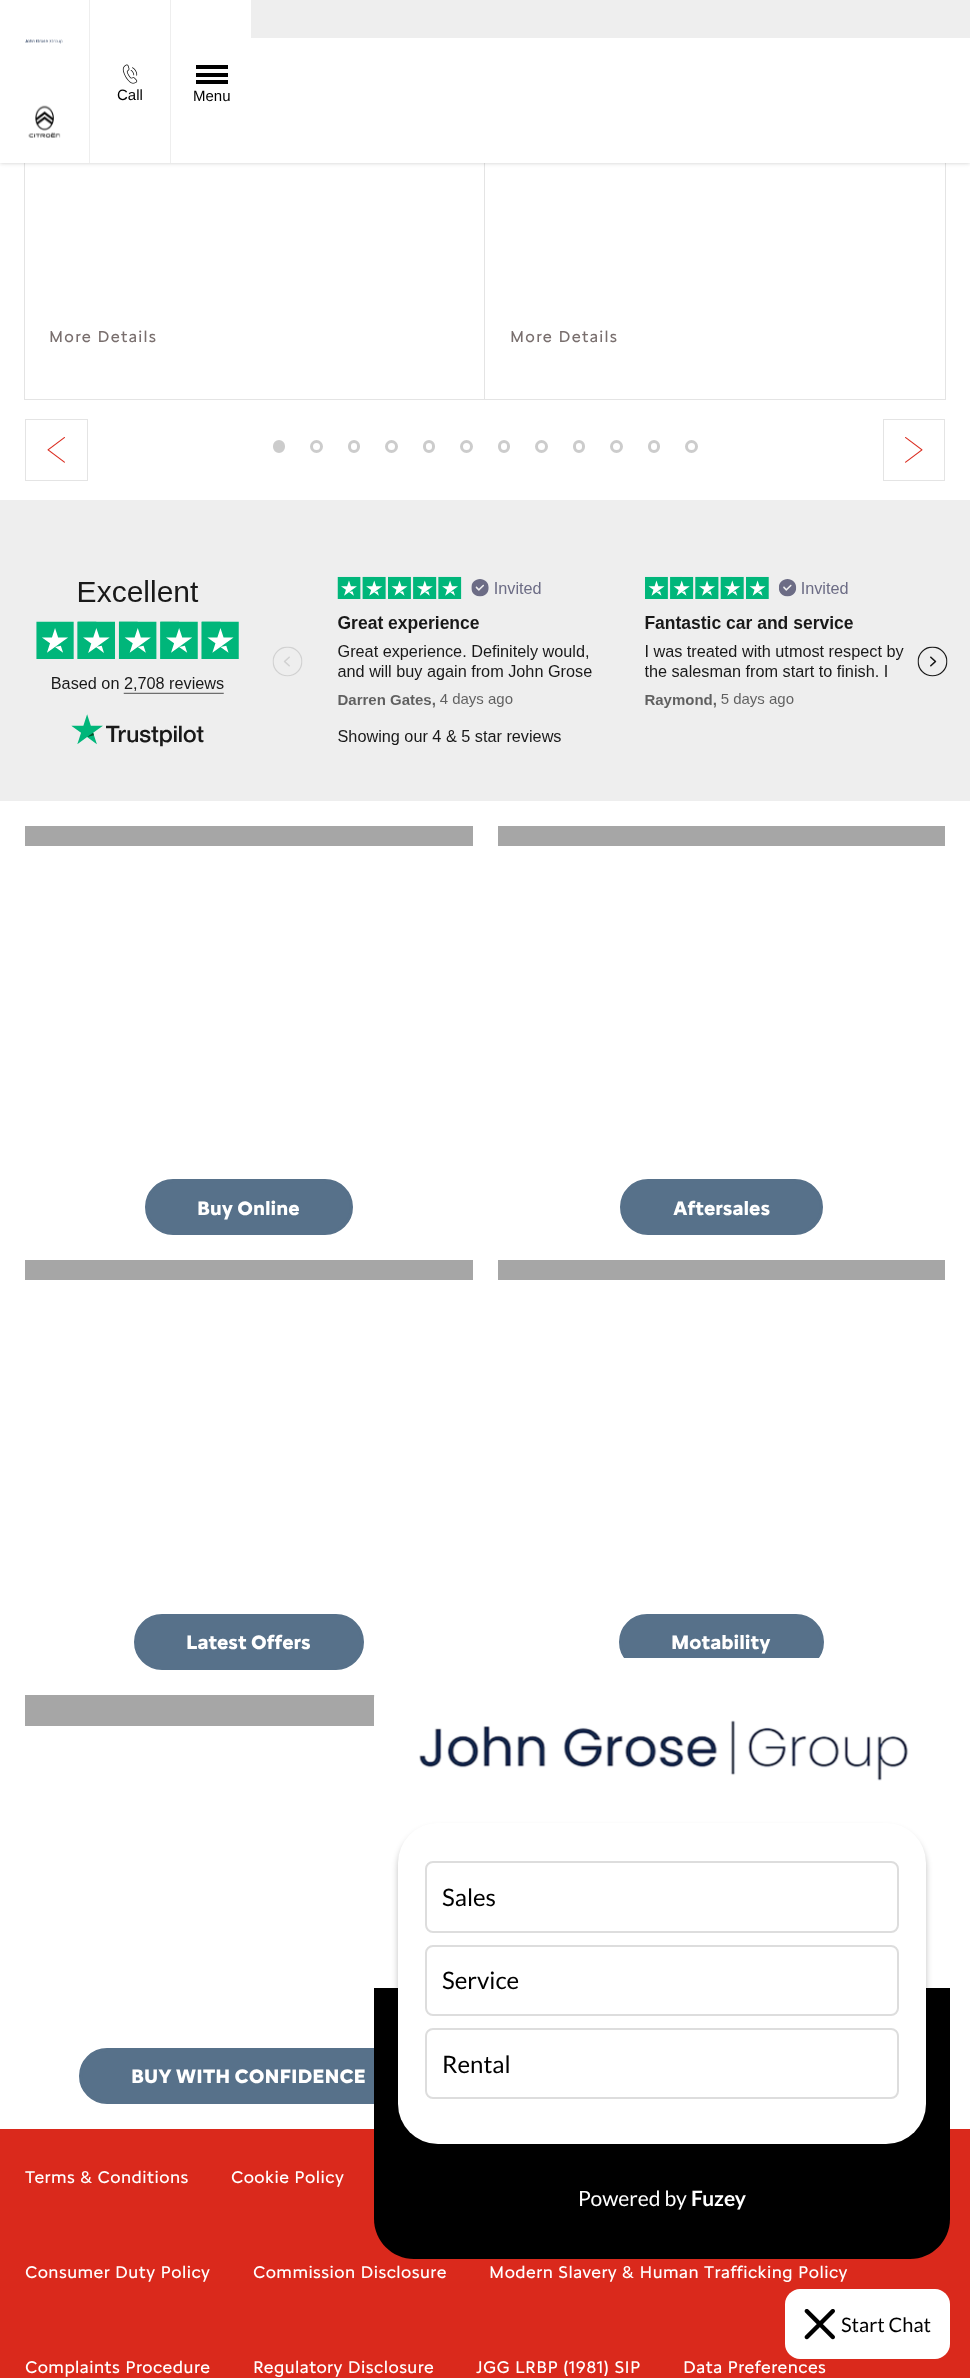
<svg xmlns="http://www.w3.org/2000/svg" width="970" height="2378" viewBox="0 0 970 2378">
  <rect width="100%" height="100%" fill="rgb(255,255,255)"/>
  <rect x="484" y="163" width="1" height="237" fill="rgb(228,228,228)"/>
  <rect x="24" y="163" width="1" height="236" fill="rgb(228,228,228)"/>
  <rect x="945" y="163" width="1" height="237" fill="rgb(228,228,228)"/>
  <rect x="0" y="0" width="970" height="163" fill="rgba(0,0,0,0.2)" filter="blur(2px)"/>
  <rect x="0" y="0" width="970" height="163" fill="rgb(255,255,255)"/>
  <rect x="251" y="0" width="719" height="38" fill="rgb(238,238,238)"/>
  <image x="25" y="39" width="38" height="5" href="pic1.png"/>
  <image x="28" y="105" width="33" height="33" href="pic2.png"/>
  <rect x="89" y="0" width="1" height="163" fill="rgb(238,238,238)"/>
  <image x="122" y="64" width="16" height="20" href="pic3.png"/>
  <text x="117" y="100" font-family="Liberation Sans" font-size="15" fill="rgb(0,0,0)">Call</text>
  <rect x="170" y="0" width="1" height="163" fill="rgb(238,238,238)"/>
  <rect x="196" y="80" width="32" height="4" fill="rgb(0,0,0)"/>
  <rect x="196" y="65" width="32" height="4" fill="rgb(0,0,0)"/>
  <rect x="196" y="73" width="32" height="4" fill="rgb(0,0,0)"/>
  <text x="193" y="101" font-family="Liberation Sans" font-size="15" fill="rgb(0,0,0)">Menu</text>
  <rect x="24" y="399" width="461" height="1" fill="rgb(228,228,228)"/>
  <text x="49" y="342" font-family="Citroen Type" font-size="16.25" letter-spacing="1.25" fill="rgb(121,111,110)">More Details</text>
  <rect x="485" y="399" width="461" height="1" fill="rgb(228,228,228)"/>
  <text x="510" y="342" font-family="Citroen Type" font-size="16.25" letter-spacing="1.25" fill="rgb(121,111,110)">More Details</text>
  <rect x="25.5" y="419.5" width="62" height="61" fill="none" stroke="rgb(228,228,228)"/>
  <image x="47" y="437" width="18" height="26" href="pic4.png"/>
  <rect x="274.5" y="441.5" width="9" height="10" rx="4.5" fill="rgb(204,204,204)" stroke="rgb(204,204,204)" stroke-width="3"/>
  <circle cx="316.5" cy="446.5" r="5" fill="none" stroke="rgb(204,204,204)" stroke-width="3"/>
  <rect x="349.5" y="441.5" width="9" height="10" rx="4.5" fill="none" stroke="rgb(204,204,204)" stroke-width="3"/>
  <circle cx="391.5" cy="446.5" r="5" fill="none" stroke="rgb(204,204,204)" stroke-width="3"/>
  <rect x="424.5" y="441.5" width="9" height="10" rx="4.5" fill="none" stroke="rgb(204,204,204)" stroke-width="3"/>
  <circle cx="466.5" cy="446.5" r="5" fill="none" stroke="rgb(204,204,204)" stroke-width="3"/>
  <rect x="499.5" y="441.5" width="9" height="10" rx="4.5" fill="none" stroke="rgb(204,204,204)" stroke-width="3"/>
  <circle cx="541.5" cy="446.5" r="5" fill="none" stroke="rgb(204,204,204)" stroke-width="3"/>
  <rect x="574.5" y="441.5" width="9" height="10" rx="4.5" fill="none" stroke="rgb(204,204,204)" stroke-width="3"/>
  <circle cx="616.5" cy="446.5" r="5" fill="none" stroke="rgb(204,204,204)" stroke-width="3"/>
  <rect x="649.5" y="441.5" width="9" height="10" rx="4.5" fill="none" stroke="rgb(204,204,204)" stroke-width="3"/>
  <circle cx="691.5" cy="446.5" r="5" fill="none" stroke="rgb(204,204,204)" stroke-width="3"/>
  <rect x="883.5" y="419.5" width="61" height="61" fill="none" stroke="rgb(228,228,228)"/>
  <image x="905" y="437" width="18" height="26" href="pic5.png"/>
  <rect x="0" y="500" width="970" height="301" fill="rgb(238,238,238)"/>
  <image x="36" y="576" width="912" height="171" href="pic6.png"/>
  <rect x="25" y="826" width="448" height="20" fill="rgb(166,166,166)"/>
  <rect x="146.5" y="1180.5" width="205" height="53" rx="26.5" fill="rgb(87,113,138)" stroke="rgb(87,113,138)" stroke-width="3"/>
  <text x="197" y="1215" font-family="Citroen Type" font-size="20" font-weight="bold" fill="rgb(255,255,255)">Buy Online</text>
  <rect x="498" y="826" width="447" height="20" fill="rgb(166,166,166)"/>
  <rect x="621.5" y="1180.5" width="200" height="53" rx="26.5" fill="rgb(87,113,138)" stroke="rgb(87,113,138)" stroke-width="3"/>
  <text x="673" y="1215" font-family="Citroen Type" font-size="20" font-weight="bold" fill="rgb(255,255,255)">Aftersales</text>
  <rect x="25" y="1260" width="448" height="20" fill="rgb(166,166,166)"/>
  <rect x="135.5" y="1615.5" width="227" height="53" rx="26.5" fill="rgb(87,113,138)" stroke="rgb(87,113,138)" stroke-width="3"/>
  <text x="186" y="1649" font-family="Citroen Type" font-size="20" font-weight="bold" fill="rgb(255,255,255)">Latest Offers</text>
  <rect x="498" y="1260" width="447" height="20" fill="rgb(166,166,166)"/>
  <rect x="620.5" y="1615.5" width="202" height="53" rx="26.5" fill="rgb(87,113,138)" stroke="rgb(87,113,138)" stroke-width="3"/>
  <text x="671" y="1649" font-family="Citroen Type" font-size="20" font-weight="bold" fill="rgb(255,255,255)">Motability</text>
  <rect x="25" y="1695" width="350" height="31" fill="rgb(166,166,166)"/>
  <rect x="80.5" y="2049.5" width="337" height="53" rx="26.5" fill="rgb(87,113,138)" stroke="rgb(87,113,138)" stroke-width="3"/>
  <text x="131" y="2083" font-family="Citroen Type" font-size="20" font-weight="bold" fill="rgb(255,255,255)">BUY WITH CONFIDENCE</text>
  <rect x="0" y="2129" width="970" height="249" fill="rgb(218,41,28)"/>
  <g font-family="Citroen Type" font-size="17.5" letter-spacing="0.45" fill="rgb(255,255,255)">
    <text x="25" y="2183">Terms &amp; Conditions</text>
    <text x="231" y="2183">Cookie Policy</text>
    <text x="25" y="2278">Consumer Duty Policy</text>
    <text x="253" y="2278">Commission Disclosure</text>
    <text x="489" y="2278">Modern Slavery &amp; Human Trafficking Policy</text>
    <text x="25" y="2373">Complaints Procedure</text>
    <text x="253" y="2373">Regulatory Disclosure</text>
    <text x="476" y="2373">JGG LRBP (1981) SIP</text>
    <text x="683" y="2373">Data Preferences</text>
  </g>
  <path d="M414 1658H910C932 1658 950 1676 950 1698V1988H374V1698C374 1676 392 1658 414 1658Z" fill="rgb(255,255,255)"/>
  <image x="419" y="1720" width="490" height="61" href="pic7.png"/>
  <path d="M374 1988H950V2219C950 2241 932 2259 910 2259H414C392 2259 374 2241 374 2219Z" fill="rgb(0,0,0)"/>
  <rect x="398" y="1828" width="528" height="322" rx="40" fill="rgba(0,0,0,0.25)" filter="blur(3px)"/>
  <rect x="398" y="1823" width="528" height="321" rx="40" fill="rgb(255,255,255)"/>
  <rect x="426" y="1862" width="472" height="70" rx="7" fill="none" stroke="rgb(221,221,221)" stroke-width="2"/>
  <text x="442" y="1906" font-family="Lato" font-size="24" fill="rgb(0,0,0)">Sales</text>
  <rect x="426" y="1946" width="472" height="69" rx="7" fill="none" stroke="rgb(221,221,221)" stroke-width="2"/>
  <text x="442" y="1989" font-family="Lato" font-size="24" fill="rgb(0,0,0)">Service</text>
  <rect x="426" y="2029" width="472" height="69" rx="7" fill="none" stroke="rgb(221,221,221)" stroke-width="2"/>
  <text x="442" y="2073" font-family="Lato" font-size="24" fill="rgb(0,0,0)">Rental</text>
  <text x="578" y="2206" font-family="Lato" font-size="21" fill="rgb(255,255,255)">Powered by</text>
  <text x="691" y="2206" font-family="Lato" font-size="21" font-weight="bold" fill="rgb(255,255,255)">Fuzey</text>
  <path d="M935 2359H800C792 2359 785 2352 785 2344V2304C785 2296 792 2289 800 2289H935C943 2289 950 2296 950 2304V2344C950 2352 943 2359 935 2359Z" fill="rgb(255,255,255)"/>
  <image x="804" y="2309" width="31" height="31" href="pic8.png"/>
  <text x="841" y="2332" font-family="Lato" font-size="20" fill="rgb(0,0,0)">Start Chat</text>
</svg>
